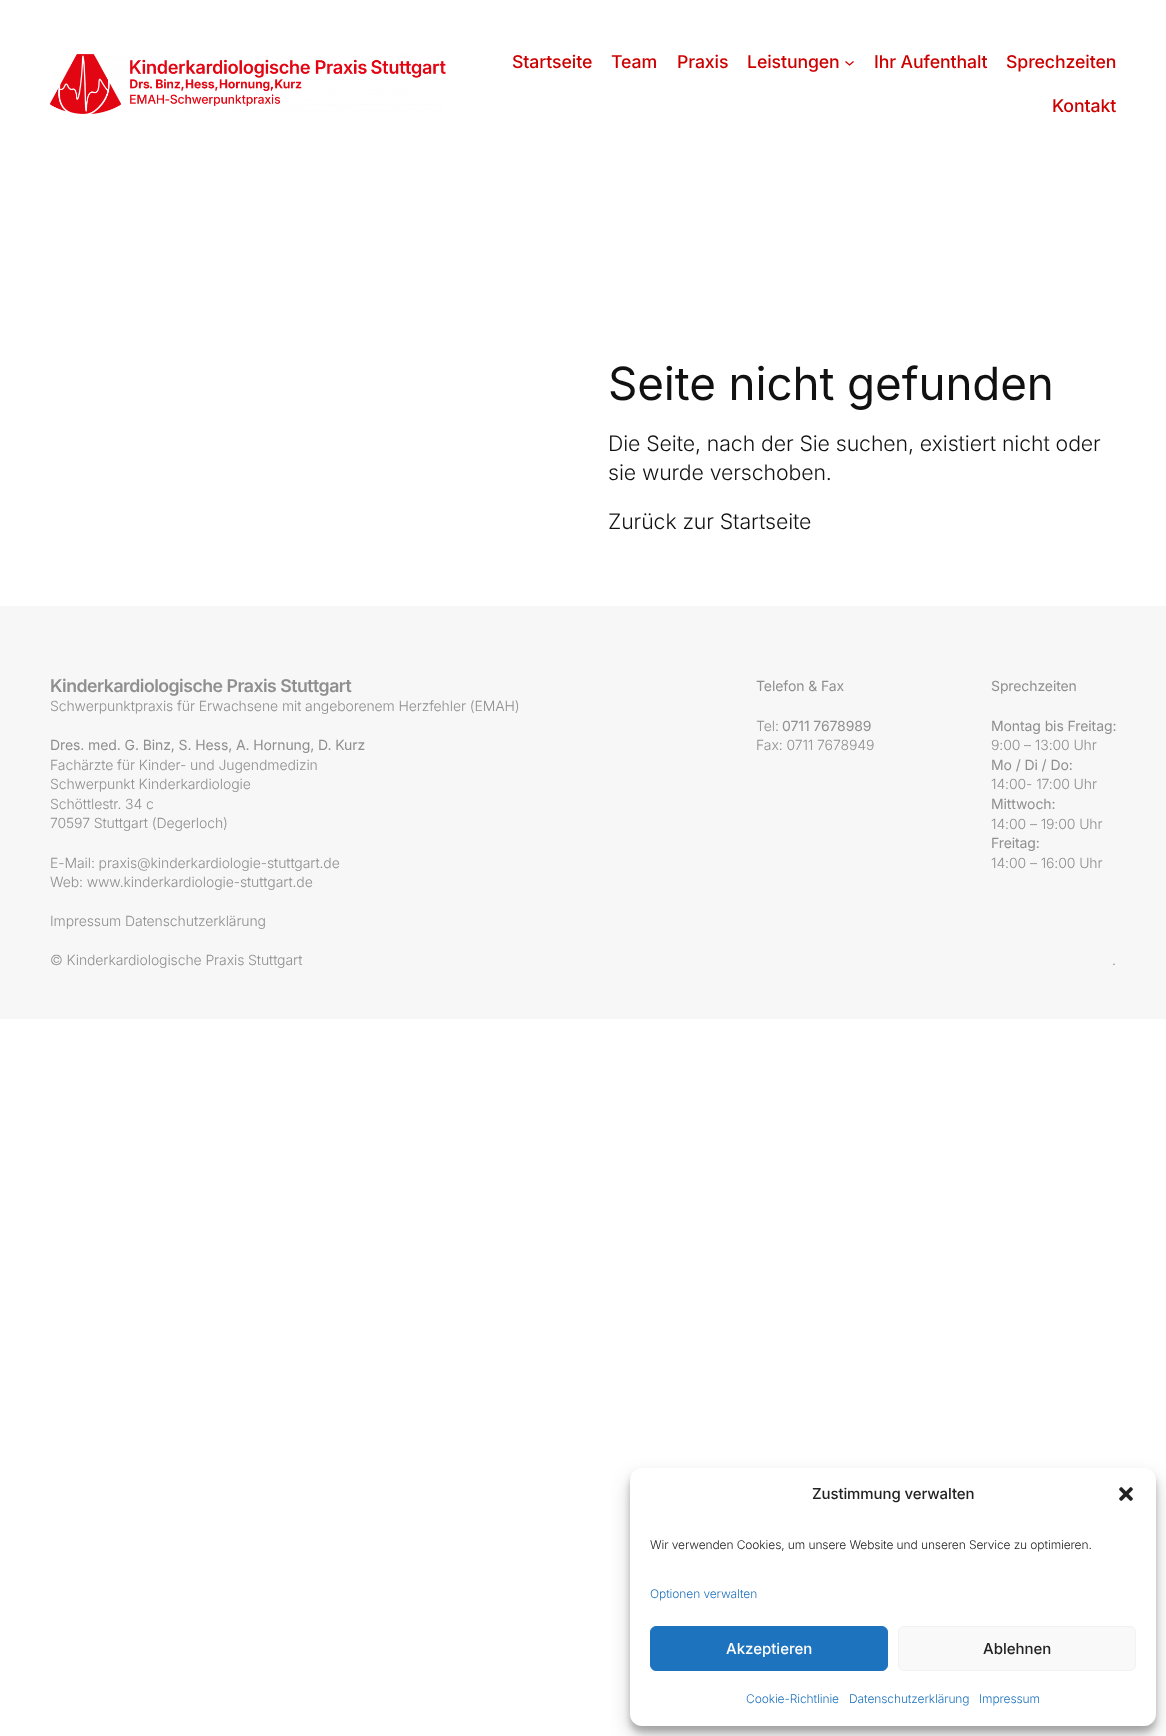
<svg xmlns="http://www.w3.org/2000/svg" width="1166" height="1736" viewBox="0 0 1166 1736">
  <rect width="100%" height="100%" fill="rgb(255,255,255)"/>
  <image x="50" y="54" width="396" height="60" href="pic1.png"/>
  <g font-family="Inter" font-size="17.7" font-weight="500" letter-spacing="-0.1" fill="rgb(204,0,0)">
    <text x="512" y="68">Startseite</text>
    <text x="611" y="68">Team</text>
    <text x="677" y="68">Praxis</text>
    <text x="747" y="68">Leistungen</text>
  </g>
  <path d="M845.5 61.5L849.5 65L853.5 61.5" fill="none" stroke="rgb(204,0,0)" stroke-width="1.3"/>
  <g font-family="Inter" font-size="17.7" font-weight="500" letter-spacing="-0.1" fill="rgb(204,0,0)">
    <text x="874" y="68">Ihr Aufenthalt</text>
    <text x="1006" y="68">Sprechzeiten</text>
    <text x="1052" y="112">Kontakt</text>
  </g>
  <text x="608" y="400" font-family="Inter" font-size="45.75" letter-spacing="-0.1" fill="rgb(17,17,17)">Seite nicht gefunden</text>
  <g font-family="Inter" font-size="21.3" font-weight="300" letter-spacing="-0.1" fill="rgb(17,17,17)">
    <text>
      <tspan x="608" y="451">Die Seite, nach der Sie suchen, existiert nicht oder</tspan>
      <tspan x="608" y="480">sie wurde verschoben.</tspan>
    </text>
    <text x="608" y="529">Zurück zur Startseite</text>
  </g>
  <rect x="0" y="606" width="1166" height="413" fill="rgb(247,247,247)"/>
  <text x="50" y="692" font-family="Inter" font-size="17.7" font-weight="600" letter-spacing="-0.5" fill="rgb(143,143,143)">Kinderkardiologische Praxis Stuttgart</text>
  <text x="50" y="711" font-family="Inter" font-size="14" font-weight="300" letter-spacing="-0.1" fill="rgb(143,143,143)">Schwerpunktpraxis für Erwachsene mit angeborenem Herzfehler (EMAH)</text>
  <text x="50" y="750" font-family="Inter" font-size="14" letter-spacing="-0.1" fill="rgb(143,143,143)">Dres. med. G. Binz, S. Hess, A. Hornung, D. Kurz</text>
  <g font-family="Inter" font-size="14" font-weight="300" letter-spacing="-0.1" fill="rgb(143,143,143)">
    <text>
      <tspan x="50" y="770">Fachärzte für Kinder- und Jugendmedizin</tspan>
      <tspan x="50" y="789">Schwerpunkt Kinderkardiologie</tspan>
      <tspan x="50" y="809">Schöttlestr. 34 c</tspan>
      <tspan x="50" y="828">70597 Stuttgart (Degerloch)</tspan>
    </text>
    <text>
      <tspan x="50" y="868">E-Mail: praxis@kinderkardiologie-stuttgart.de</tspan>
      <tspan x="50" y="887">Web: www.kinderkardiologie-stuttgart.de</tspan>
    </text>
    <text x="50" y="926">Impressum Datenschutzerklärung</text>
  </g>
  <text x="756" y="691" font-family="Inter" font-size="14" letter-spacing="-0.1" fill="rgb(143,143,143)">Telefon &amp; Fax</text>
  <text x="756" y="731" font-family="Inter" font-size="14" font-weight="300" letter-spacing="-0.1" fill="rgb(143,143,143)">Tel:</text>
  <text x="782" y="731" font-family="Inter" font-size="14" letter-spacing="-0.1" fill="rgb(143,143,143)">0711 7678989</text>
  <text x="756" y="750" font-family="Inter" font-size="14" font-weight="300" letter-spacing="-0.1" fill="rgb(143,143,143)">Fax: 0711 7678949</text>
  <g font-family="Inter" font-size="14" letter-spacing="-0.1" fill="rgb(143,143,143)">
    <text x="991" y="691">Sprechzeiten</text>
    <text x="991" y="731">Montag bis Freitag:</text>
  </g>
  <text x="991" y="750" font-family="Inter" font-size="14" font-weight="300" letter-spacing="-0.1" fill="rgb(143,143,143)">9:00 – 13:00 Uhr</text>
  <text x="991" y="770" font-family="Inter" font-size="14" letter-spacing="-0.1" fill="rgb(143,143,143)">Mo / Di / Do:</text>
  <text x="991" y="789" font-family="Inter" font-size="14" font-weight="300" letter-spacing="-0.1" fill="rgb(143,143,143)">14:00- 17:00 Uhr</text>
  <text x="991" y="809" font-family="Inter" font-size="14" letter-spacing="-0.1" fill="rgb(143,143,143)">Mittwoch:</text>
  <text x="991" y="829" font-family="Inter" font-size="14" font-weight="300" letter-spacing="-0.1" fill="rgb(143,143,143)">14:00 – 19:00 Uhr</text>
  <text x="991" y="848" font-family="Inter" font-size="14" letter-spacing="-0.1" fill="rgb(143,143,143)">Freitag:</text>
  <g font-family="Inter" font-size="14" font-weight="300" letter-spacing="-0.1" fill="rgb(143,143,143)">
    <text x="991" y="868">14:00 – 16:00 Uhr</text>
    <text x="50" y="965">© Kinderkardiologische Praxis Stuttgart</text>
    <text x="1112" y="965">.</text>
  </g>
  <rect x="630" y="1474" width="526" height="258" rx="12" fill="rgba(0,0,0,0.23)" filter="blur(3px)"/>
  <rect x="630" y="1478" width="526" height="258" rx="12" fill="rgba(0,0,0,0.19)" filter="blur(10px)"/>
  <rect x="630" y="1468" width="526" height="258" rx="12" fill="rgb(255,255,255)"/>
  <text x="812" y="1499" font-family="Inter" font-size="15" font-weight="500" letter-spacing="-0.1" fill="rgb(34,34,34)">Zustimmung verwalten</text>
  <image x="1119" y="1487" width="14" height="14" href="pic2.png"/>
  <text x="650" y="1549" font-family="Inter" font-size="12" font-weight="300" letter-spacing="-0.1" fill="rgb(34,34,34)">Wir verwenden Cookies, um unsere Website und unseren Service zu optimieren.</text>
  <text x="650" y="1598" font-family="Inter" font-size="12" font-weight="300" letter-spacing="-0.1" fill="rgb(30,115,190)">Optionen verwalten</text>
  <rect x="650.5" y="1626.5" width="237" height="44" rx="5.5" fill="rgb(30,115,190)" stroke="rgb(30,115,190)"/>
  <text x="726" y="1654" font-family="Inter" font-size="15" font-weight="500" fill="rgb(255,255,255)">Akzeptieren</text>
  <rect x="898.5" y="1626.5" width="237" height="44" rx="5.5" fill="rgb(249,249,249)" stroke="rgb(242,242,242)"/>
  <text x="983" y="1654" font-family="Inter" font-size="15" font-weight="500" fill="rgb(34,34,34)">Ablehnen</text>
  <g font-family="Inter" font-size="12" font-weight="300" letter-spacing="-0.1" fill="rgb(30,115,190)">
    <text x="746" y="1703">Cookie-Richtlinie</text>
    <text x="849" y="1703">Datenschutzerklärung</text>
    <text x="979" y="1703">Impressum</text>
  </g>
</svg>
